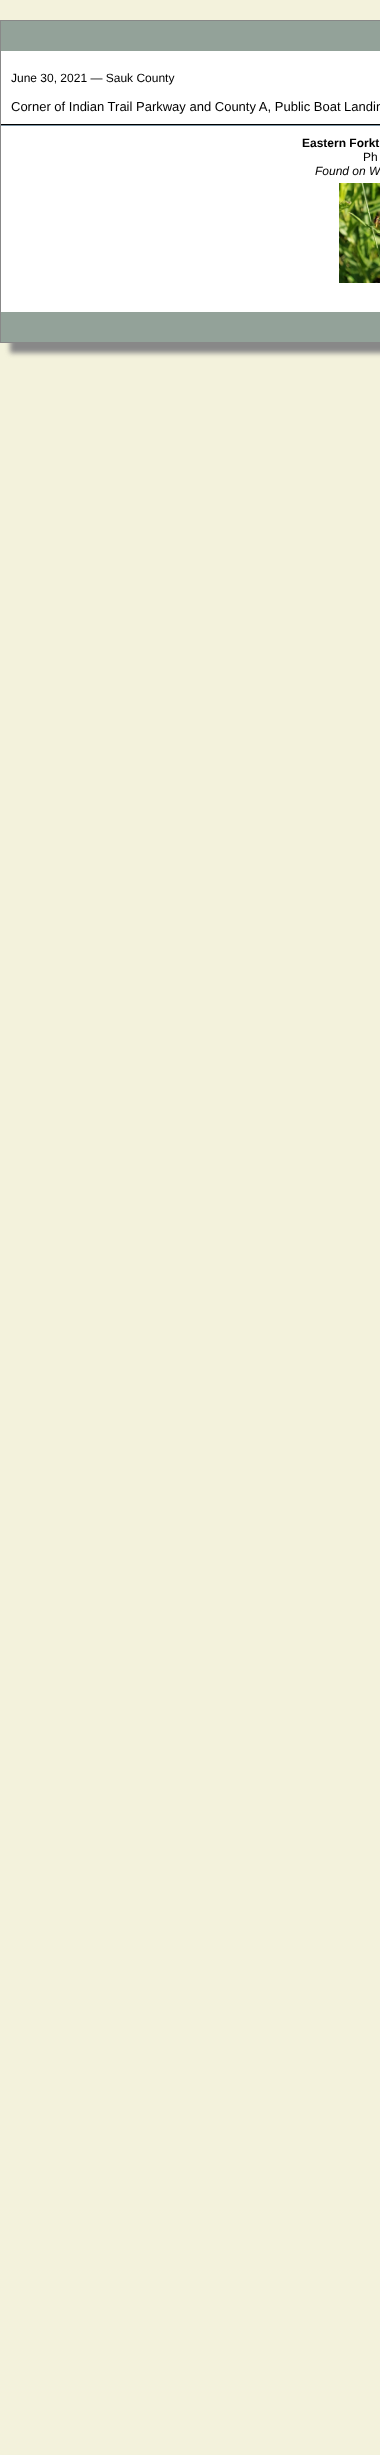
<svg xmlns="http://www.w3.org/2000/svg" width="380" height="2455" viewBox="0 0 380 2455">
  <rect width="100%" height="100%" fill="rgb(243,242,220)"/>
  <rect x="10" y="30" width="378" height="323" fill="rgb(136,136,136)" filter="blur(2.5px)"/>
  <rect x="1" y="51" width="379" height="261" fill="rgb(255,255,255)"/>
  <rect x="0.5" y="20.5" width="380" height="322" fill="none" stroke="rgb(136,136,136)"/>
  <rect x="1" y="21" width="379" height="30" fill="rgb(147,162,153)"/>
  <text x="11" y="82" font-family="Liberation Sans" font-size="12" fill="rgb(0,0,0)">June 30, 2021 — Sauk County</text>
  <text x="11" y="111" font-family="Liberation Sans" font-size="13" fill="rgb(0,0,0)">Corner of Indian Trail Parkway and County A, Public Boat Landin</text>
  <rect x="1" y="124" width="379" height="1" fill="rgb(0,0,0)"/>
  <rect x="1" y="125" width="379" height="1" fill="rgb(123,147,163)"/>
  <text x="302" y="147" font-family="Liberation Sans" font-size="12" font-weight="bold" fill="rgb(0,0,0)">Eastern Forkt</text>
  <text x="363" y="161" font-family="Liberation Sans" font-size="12" fill="rgb(0,0,0)">Ph</text>
  <text x="315" y="175" font-family="Liberation Sans" font-size="12" font-style="italic" fill="rgb(0,0,0)">Found on W</text>
  <image x="339" y="183" width="41" height="100" href="pic1.png"/>
  <rect x="1" y="312" width="379" height="30" fill="rgb(147,162,153)"/>
</svg>
